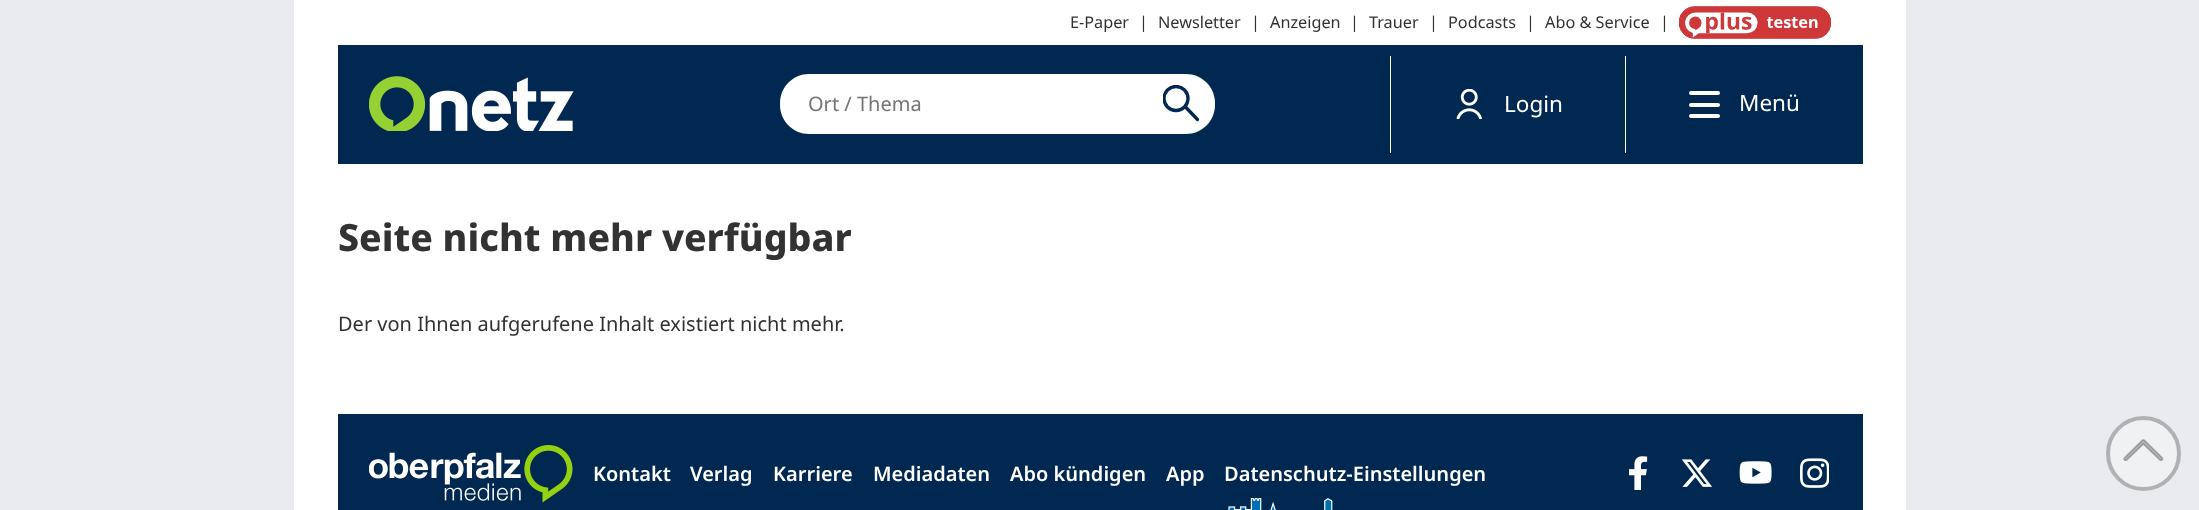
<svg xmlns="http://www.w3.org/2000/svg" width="2199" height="510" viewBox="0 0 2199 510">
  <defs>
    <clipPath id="clip1"><rect x="1163" y="85" width="37" height="38"/></clipPath>
  </defs>
  <rect width="100%" height="100%" fill="rgb(234,235,238)"/>
  <rect x="294" y="0" width="1612" height="510" fill="rgb(255,255,255)"/>
  <g font-family="Noto Sans" font-size="16.25" fill="rgb(50,50,50)">
    <text x="1070" y="28">E-Paper</text>
    <text x="1139" y="28">|</text>
    <text x="1158" y="28">Newsletter</text>
    <text x="1251" y="28">|</text>
    <text x="1270" y="28">Anzeigen</text>
    <text x="1350" y="28">|</text>
    <text x="1369" y="28">Trauer</text>
    <text x="1429" y="28">|</text>
    <text x="1448" y="28">Podcasts</text>
    <text x="1526" y="28">|</text>
    <text x="1545" y="28">Abo &amp; Service</text>
    <text x="1660" y="28">|</text>
  </g>
  <image x="1679" y="6" width="152" height="33" href="pic1.png"/>
  <rect x="338" y="45" width="1525" height="119" fill="rgb(0,40,80)"/>
  <image x="369" y="76" width="205" height="55" href="pic2.png"/>
  <path d="M809 74H1156V134H809C793 134 780 121 780 105V103C780 87 793 74 809 74Z" fill="rgb(255,255,255)"/>
  <text x="808" y="111" font-family="Noto Sans" font-size="20" fill="rgb(117,117,117)">Ort / Thema</text>
  <path d="M1156 74H1186C1202 74 1215 87 1215 103V105C1215 121 1202 134 1186 134H1156Z" fill="rgb(255,255,255)"/>
  <g clip-path="url(#clip1)">
    <circle cx="1176" cy="98.5" r="12" fill="none" stroke="rgb(0,40,80)" stroke-width="3.3"/>
  </g>
  <path d="M1185.5 107L1197.5 119.5" fill="none" stroke="rgb(0,40,80)" stroke-width="3.3" stroke-linecap="round"/>
  <rect x="1390" y="56" width="1" height="97" fill="rgb(255,255,255)"/>
  <image x="1456" y="89" width="26" height="30" href="pic3.png"/>
  <text x="1504" y="112" font-family="Noto Sans" font-size="22.5" fill="rgb(255,255,255)">Login</text>
  <rect x="1625" y="56" width="1" height="97" fill="rgb(255,255,255)"/>
  <rect x="1689" y="103" width="31" height="4" rx="2" fill="rgb(255,255,255)"/>
  <rect x="1689" y="91" width="31" height="4" rx="2" fill="rgb(255,255,255)"/>
  <rect x="1689" y="114" width="31" height="4" rx="2" fill="rgb(255,255,255)"/>
  <text x="1739" y="111" font-family="Noto Sans" font-size="22.5" fill="rgb(255,255,255)">Menü</text>
  <text x="338" y="251" font-family="Noto Sans" font-size="37.5" font-weight="800" fill="rgb(50,50,50)">Seite nicht mehr verfügbar</text>
  <text x="338" y="331" font-family="Noto Sans" font-size="20" fill="rgb(50,50,50)">Der von Ihnen aufgerufene Inhalt existiert nicht mehr.</text>
  <rect x="338" y="414" width="1525" height="96" fill="rgb(0,40,80)"/>
  <image x="369" y="445" width="204" height="58" href="pic4.png"/>
  <g font-family="Noto Sans" font-size="20" font-weight="600" fill="rgb(255,255,255)">
    <text x="593" y="481">Kontakt</text>
    <text x="690" y="481">Verlag</text>
    <text x="773" y="481">Karriere</text>
    <text x="873" y="481">Mediadaten</text>
    <text x="1010" y="481">Abo kündigen</text>
    <text x="1166" y="481">App</text>
    <text x="1224" y="481">Datenschutz-Einstellungen</text>
  </g>
  <image x="1629" y="456" width="19" height="34" href="pic5.png"/>
  <image x="1681" y="459" width="31" height="28" href="pic6.png"/>
  <image x="1739" y="461" width="33" height="23" href="pic7.png"/>
  <image x="1800" y="458" width="29" height="30" href="pic8.png"/>
  <image x="1228" y="498" width="105" height="12" href="pic9.png"/>
  <circle cx="2143.5" cy="453.5" r="35.5" fill="rgb(240,241,243)" stroke="rgb(176,177,179)" stroke-width="4"/>
  <image x="2123" y="439" width="41" height="22" href="pic10.png"/>
</svg>
